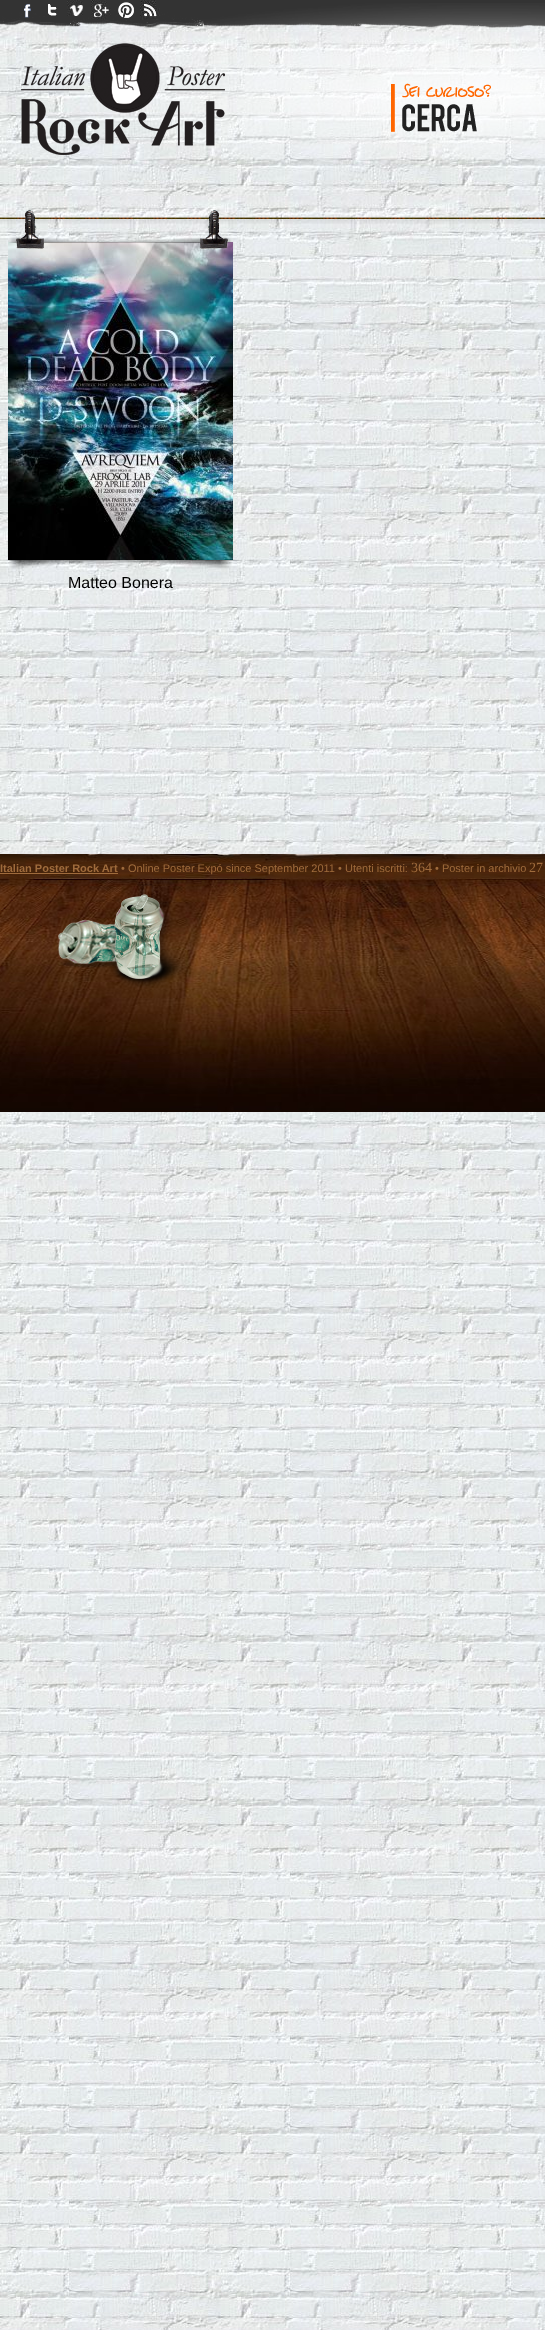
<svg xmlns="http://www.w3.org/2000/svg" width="545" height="2330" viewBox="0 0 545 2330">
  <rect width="100%" height="100%" fill="rgb(255,255,255)"/>
  <image x="0" y="10" width="545" height="2320" href="pic1.png"/>
  <image x="0" y="0" width="545" height="28" href="pic2.png"/>
  <image x="93" y="3" width="452" height="157" href="pic3.png"/>
  <image x="24" y="4" width="7" height="14" href="pic4.png"/>
  <image x="48" y="4" width="9" height="12" href="pic5.png"/>
  <image x="67" y="0" width="16" height="19" href="pic6.png"/>
  <image x="91" y="0" width="20" height="20" href="pic7.png"/>
  <image x="118" y="2" width="16" height="18" href="pic8.png"/>
  <image x="140" y="0" width="20" height="20" href="pic9.png"/>
  <image x="21" y="43" width="204" height="112" href="pic10.png"/>
  <image x="391" y="83" width="100" height="49" href="pic11.png"/>
  <image x="0" y="217" width="545" height="7" href="pic12.png"/>
  <image x="8" y="242" width="225" height="318" href="pic14.png"/>
  <image x="9" y="210" width="223" height="39" href="pic13.png"/>
  <image x="9" y="560" width="223" height="9" href="pic15.png"/>
  <text x="68" y="588" font-family="Liberation Sans" font-size="16" fill="rgb(0,0,0)">Matteo Bonera</text>
  <image x="0" y="854" width="545" height="258" href="pic16.png"/>
  <text x="0" y="872" font-family="Liberation Sans" font-size="11" font-weight="bold" fill="rgb(159,107,60)">Italian Poster Rock Art</text>
  <rect x="0" y="873" width="118" height="1" fill="rgb(159,107,60)"/>
  <text x="121" y="872" font-family="Liberation Sans" font-size="11" fill="rgb(159,107,60)">• Online Poster Expó since September 2011 • Utenti iscritti:</text>
  <text x="411" y="872" font-family="Liberation Serif" font-size="14" fill="rgb(159,107,60)">364</text>
  <text x="435" y="872" font-family="Liberation Sans" font-size="11" fill="rgb(159,107,60)">• Poster in archivio</text>
  <text x="529" y="872" font-family="Liberation Serif" font-size="14" fill="rgb(159,107,60)">27</text>
  <image x="58" y="894" width="133" height="94" href="pic17.png"/>
</svg>
